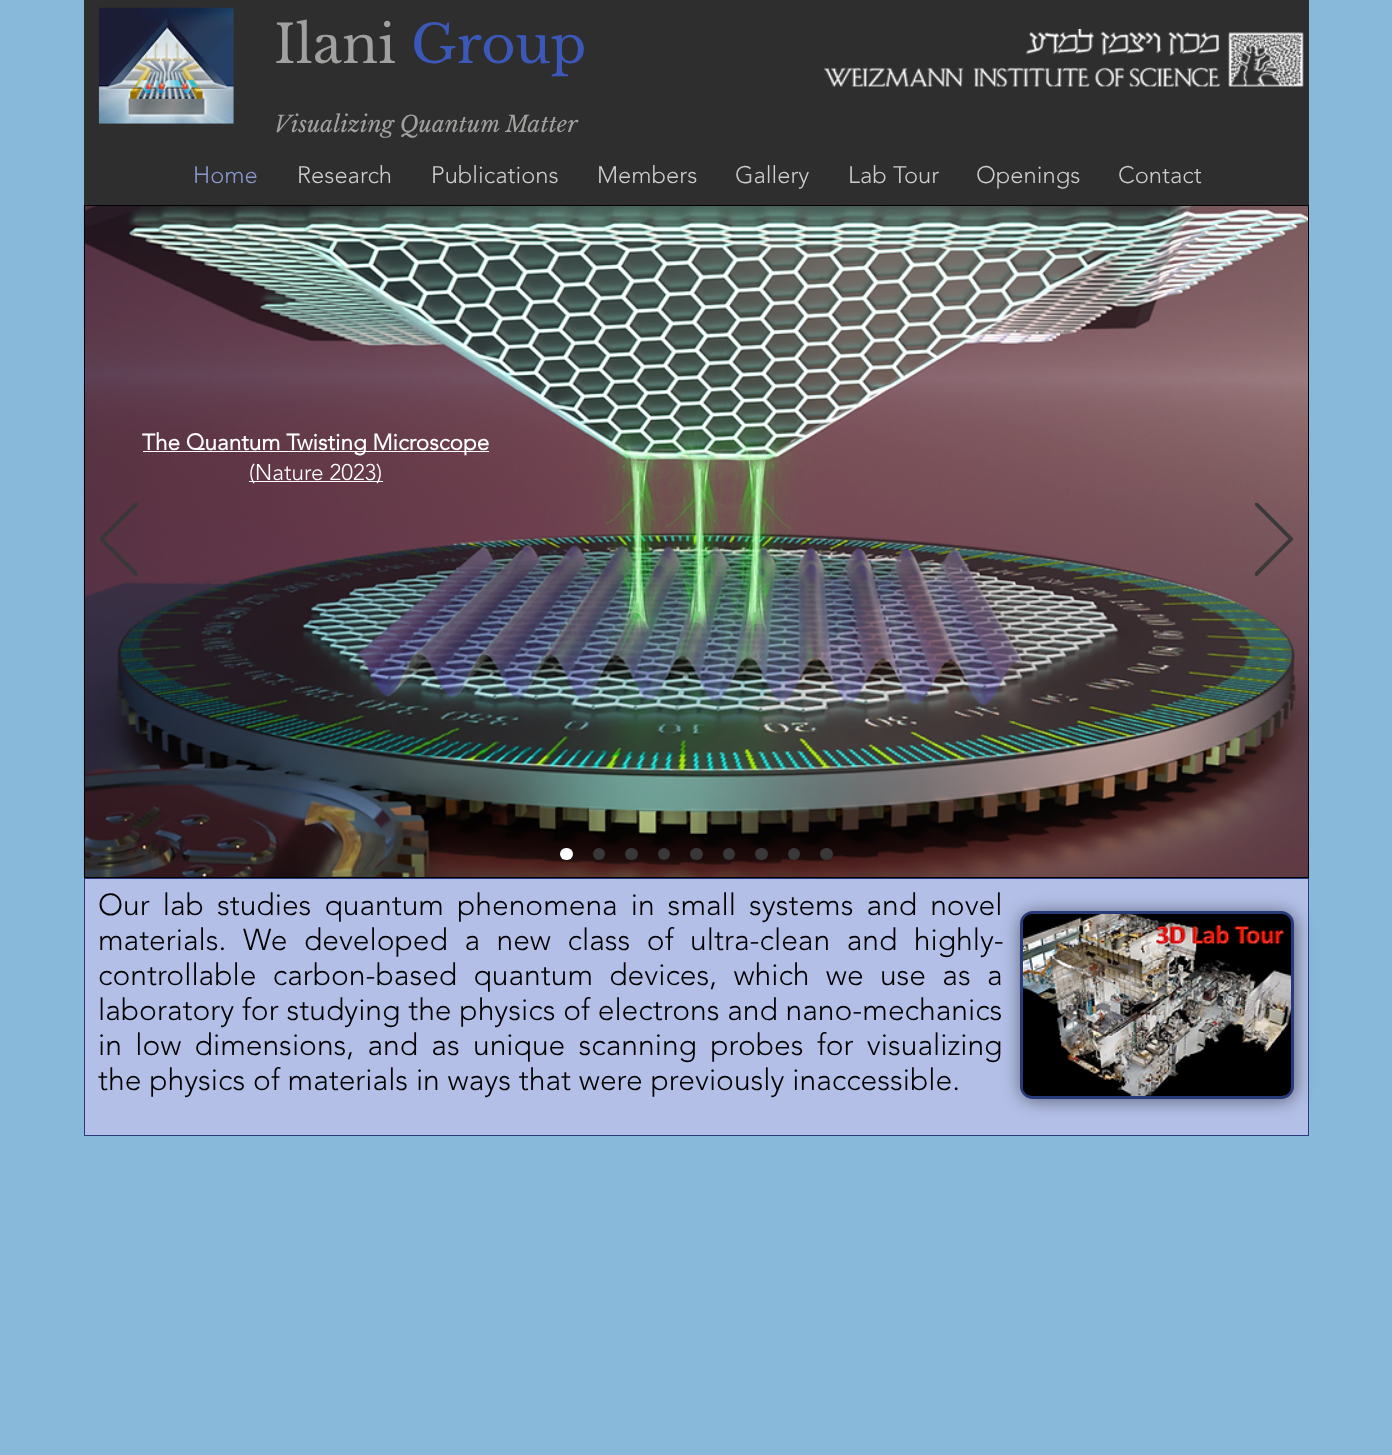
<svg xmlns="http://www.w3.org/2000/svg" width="1392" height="1455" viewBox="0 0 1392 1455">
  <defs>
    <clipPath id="clip1"><rect x="100" y="503" width="38" height="73"/></clipPath>
    <clipPath id="clip2"><rect x="1255" y="503" width="38" height="73"/></clipPath>
  </defs>
  <rect width="100%" height="100%" fill="rgb(136,184,218)"/>
  <rect x="84" y="0" width="1225" height="205" fill="rgb(47,46,46)"/>
  <image x="98" y="7" width="136" height="117" href="pic1.png"/>
  <text x="274" y="63" font-family="Libre Baskerville" font-size="52.5" fill="rgb(160,160,159)">Ilani</text>
  <text x="411" y="63" font-family="Libre Baskerville" font-size="52.5" fill="rgb(59,88,184)">Group</text>
  <image x="824" y="28" width="480" height="59" href="pic2.png"/>
  <text x="274" y="132" font-family="Libre Baskerville" font-size="22.5" font-style="italic" fill="rgb(160,160,159)">Visualizing Quantum Matter</text>
  <text x="193" y="183" font-family="'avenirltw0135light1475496'" font-size="23.75" font-weight="300" fill="rgb(137,153,208)">Home</text>
  <g font-family="'avenirltw0135light1475496'" font-size="23.75" font-weight="300" fill="rgb(204,204,204)">
    <text x="297" y="183">Research</text>
    <text x="431" y="183">Publications</text>
    <text x="597" y="183">Members</text>
    <text x="735" y="183">Gallery</text>
    <text x="848" y="183">Lab Tour</text>
    <text x="976" y="183">Openings</text>
    <text x="1118" y="183">Contact</text>
  </g>
  <image x="83" y="205" width="1225" height="672" href="pic3.png"/>
  <rect x="84.5" y="205.5" width="1224" height="672" fill="none" stroke="rgb(0,0,0)"/>
  <rect x="143" y="451" width="346" height="1" fill="rgb(255,255,255)"/>
  <text x="142" y="450" font-family="'avenirltw0135light1475496'" font-size="22.5" font-weight="bold" fill="rgb(255,255,255)">The Quantum Twisting Microscope</text>
  <rect x="249" y="481" width="134" height="1" fill="rgb(255,255,255)"/>
  <text x="249" y="480" font-family="'avenirltw0135light1475496'" font-size="22.5" font-weight="300" fill="rgb(255,255,255)">(Nature 2023)</text>
  <path d="M136 575L100 539L136 503L137 504L102 539L137 574Z" fill="rgb(56,56,56)"/>
  <g clip-path="url(#clip1)">
    <path d="M136 575.5L100 539L136 503L137.5 504L102.5 539L137.5 574Z" fill="none" stroke="rgb(56,56,56)" stroke-width="1.8"/>
  </g>
  <g clip-path="url(#clip2)">
    <path d="M1256.5 575.5L1292.5 539L1256.5 503L1255 504L1290 539L1255 574Z" fill="none" stroke="rgb(56,56,56)" stroke-width="1.8"/>
  </g>
  <rect x="560" y="848" width="13" height="12" rx="6" fill="rgb(255,255,255)"/>
  <circle cx="599" cy="854" r="6" fill="rgb(56,56,56)"/>
  <rect x="625" y="848" width="13" height="12" rx="6" fill="rgb(56,56,56)"/>
  <circle cx="664" cy="854" r="6" fill="rgb(56,56,56)"/>
  <rect x="690" y="848" width="13" height="12" rx="6" fill="rgb(56,56,56)"/>
  <circle cx="729" cy="854" r="6" fill="rgb(56,56,56)"/>
  <rect x="755" y="848" width="13" height="12" rx="6" fill="rgb(56,56,56)"/>
  <circle cx="794" cy="854" r="6" fill="rgb(56,56,56)"/>
  <rect x="820" y="848" width="13" height="12" rx="6" fill="rgb(56,56,56)"/>
  <rect x="84.5" y="878.5" width="1224" height="257" fill="rgb(179,191,231)" stroke="rgb(39,59,123)"/>
  <g font-family="'avenirltw0135light1475496'" font-size="30" font-weight="300" fill="rgb(0,0,0)">
    <text>
      <tspan x="98" y="915" word-spacing="5.25">Our lab studies quantum phenomena in small systems and novel</tspan>
      <tspan x="98" y="950" word-spacing="8.75">materials. We developed a new class of ultra-clean and highly-</tspan>
      <tspan x="98" y="985" word-spacing="8.5">controllable carbon-based quantum devices, which we use as a</tspan>
      <tspan x="98" y="1020">laboratory for studying the physics of electrons and nano-mechanics</tspan>
      <tspan x="98" y="1055" word-spacing="5.5">in low dimensions, and as unique scanning probes for visualizing</tspan>
      <tspan x="98" y="1090">the physics of materials in ways that were previously inaccessible.</tspan>
    </text>
  </g>
  <rect x="1021" y="913" width="274" height="187" rx="13" fill="rgba(0,0,0,0.5)" filter="blur(9px)"/>
  <rect x="1021.5" y="912.5" width="271" height="185" rx="11.5" fill="none" stroke="rgb(39,59,123)" stroke-width="3"/>
  <image x="1023" y="914" width="268" height="182" href="pic4.png"/>
</svg>
